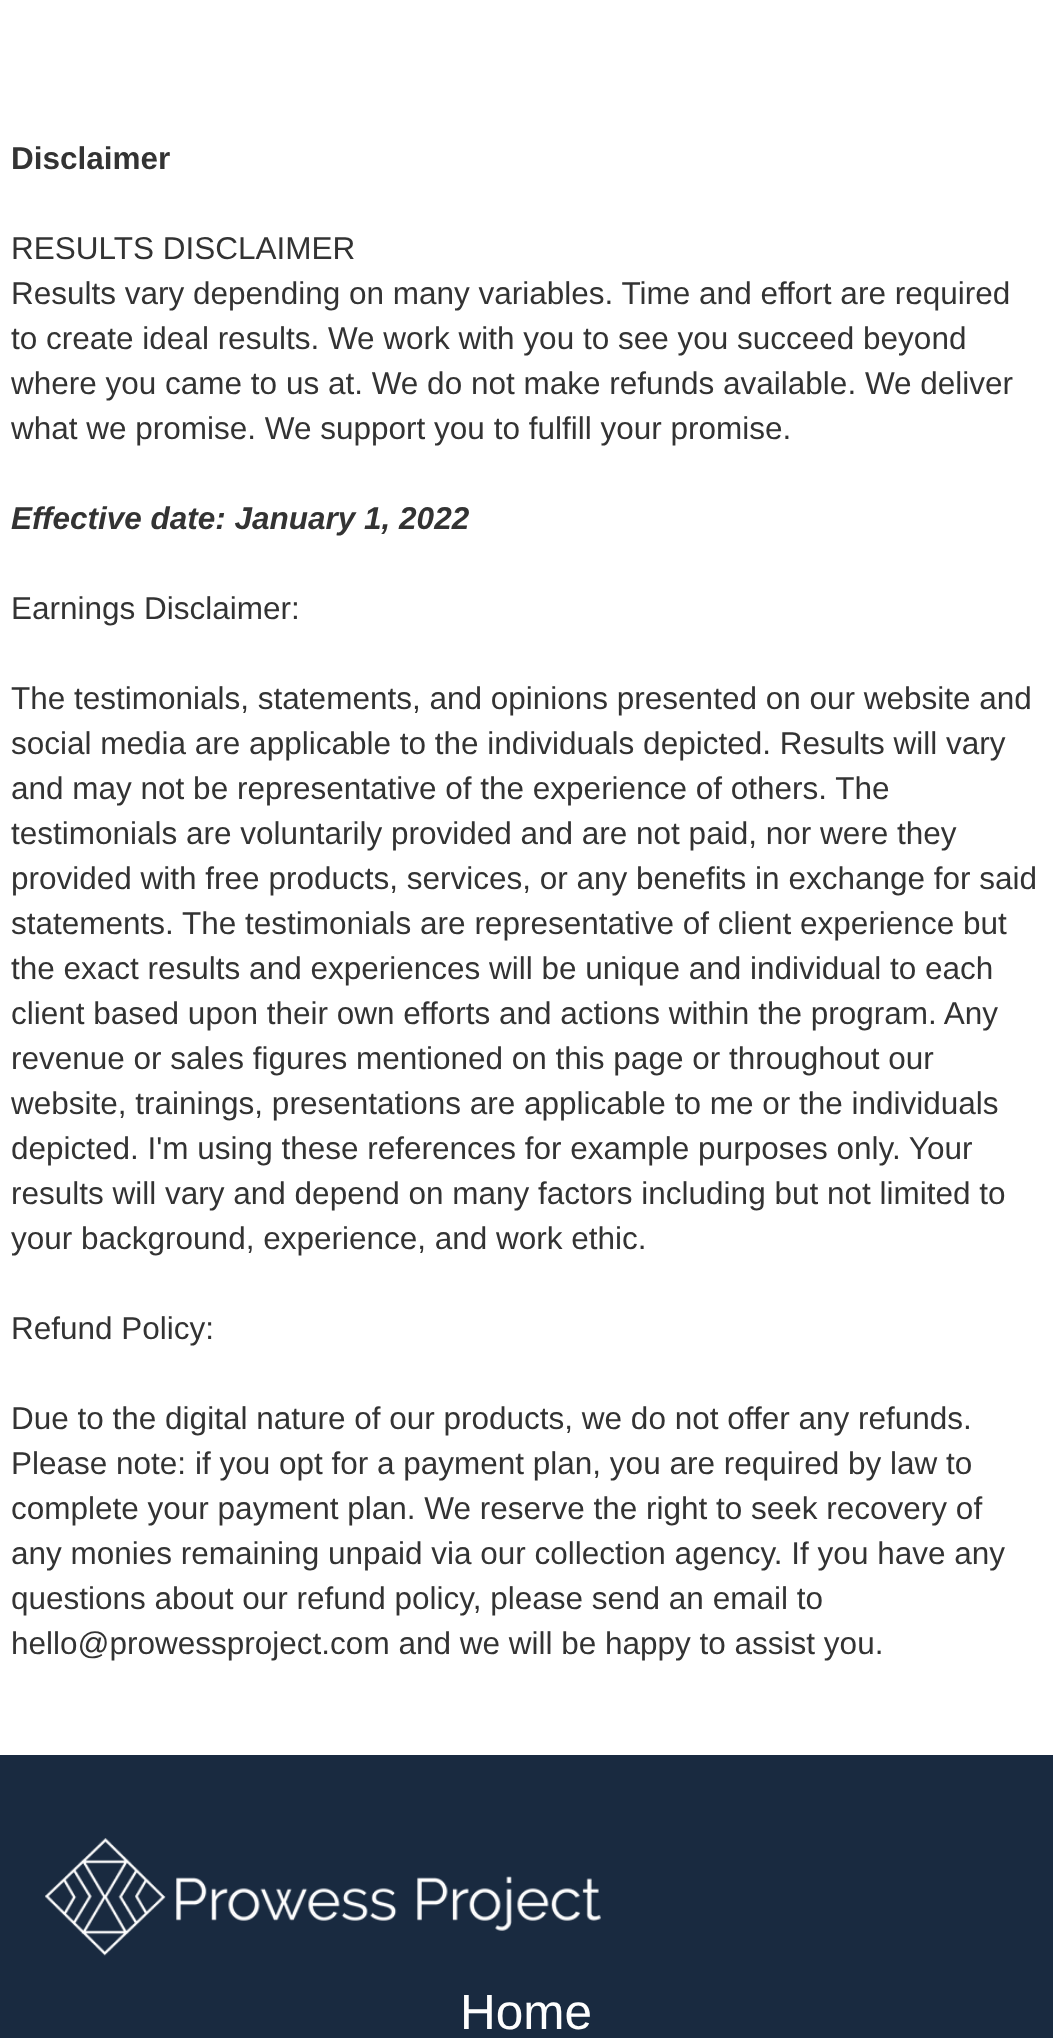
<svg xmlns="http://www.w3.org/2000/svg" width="1053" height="2038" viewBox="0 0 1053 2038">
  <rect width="100%" height="100%" fill="rgb(255,255,255)"/>
  <text x="11" y="169" font-family="Liberation Sans" font-size="31.5" font-weight="bold" fill="rgb(51,51,51)">Disclaimer</text>
  <g font-family="Liberation Sans" font-size="31.5" fill="rgb(51,51,51)">
    <text>
      <tspan x="11" y="259">RESULTS DISCLAIMER</tspan>
      <tspan x="11" y="304">Results vary depending on many variables. Time and effort are required</tspan>
      <tspan x="11" y="349">to create ideal results. We work with you to see you succeed beyond</tspan>
      <tspan x="11" y="394">where you came to us at. We do not make refunds available. We deliver</tspan>
      <tspan x="11" y="439">what we promise. We support you to fulfill your promise.</tspan>
    </text>
  </g>
  <text x="11" y="529" font-family="Liberation Sans" font-size="31.5" font-weight="bold" font-style="italic" fill="rgb(51,51,51)">Effective date: January 1, 2022</text>
  <g font-family="Liberation Sans" font-size="31.5" fill="rgb(51,51,51)">
    <text x="11" y="619">Earnings Disclaimer:</text>
    <text>
      <tspan x="11" y="709">The testimonials, statements, and opinions presented on our website and</tspan>
      <tspan x="11" y="754">social media are applicable to the individuals depicted. Results will vary</tspan>
      <tspan x="11" y="799">and may not be representative of the experience of others. The</tspan>
      <tspan x="11" y="844">testimonials are voluntarily provided and are not paid, nor were they</tspan>
      <tspan x="11" y="889">provided with free products, services, or any benefits in exchange for said</tspan>
      <tspan x="11" y="934">statements. The testimonials are representative of client experience but</tspan>
      <tspan x="11" y="979">the exact results and experiences will be unique and individual to each</tspan>
      <tspan x="11" y="1024">client based upon their own efforts and actions within the program. Any</tspan>
      <tspan x="11" y="1069">revenue or sales figures mentioned on this page or throughout our</tspan>
      <tspan x="11" y="1114">website, trainings, presentations are applicable to me or the individuals</tspan>
      <tspan x="11" y="1159">depicted. I'm using these references for example purposes only. Your</tspan>
      <tspan x="11" y="1204">results will vary and depend on many factors including but not limited to</tspan>
      <tspan x="11" y="1249">your background, experience, and work ethic.</tspan>
    </text>
    <text x="11" y="1339">Refund Policy:</text>
    <text>
      <tspan x="11" y="1429">Due to the digital nature of our products, we do not offer any refunds.</tspan>
      <tspan x="11" y="1474">Please note: if you opt for a payment plan, you are required by law to</tspan>
      <tspan x="11" y="1519">complete your payment plan. We reserve the right to seek recovery of</tspan>
      <tspan x="11" y="1564">any monies remaining unpaid via our collection agency. If you have any</tspan>
      <tspan x="11" y="1609">questions about our refund policy, please send an email to</tspan>
      <tspan x="11" y="1654">hello@prowessproject.com and we will be happy to assist you.</tspan>
    </text>
  </g>
  <rect x="0" y="1755" width="1053" height="283" fill="rgb(25,42,64)"/>
  <image x="45" y="1838" width="556" height="118" href="pic1.png"/>
  <text x="460" y="2029" font-family="Liberation Sans" font-size="49.5" fill="rgb(254,254,254)">Home</text>
</svg>
